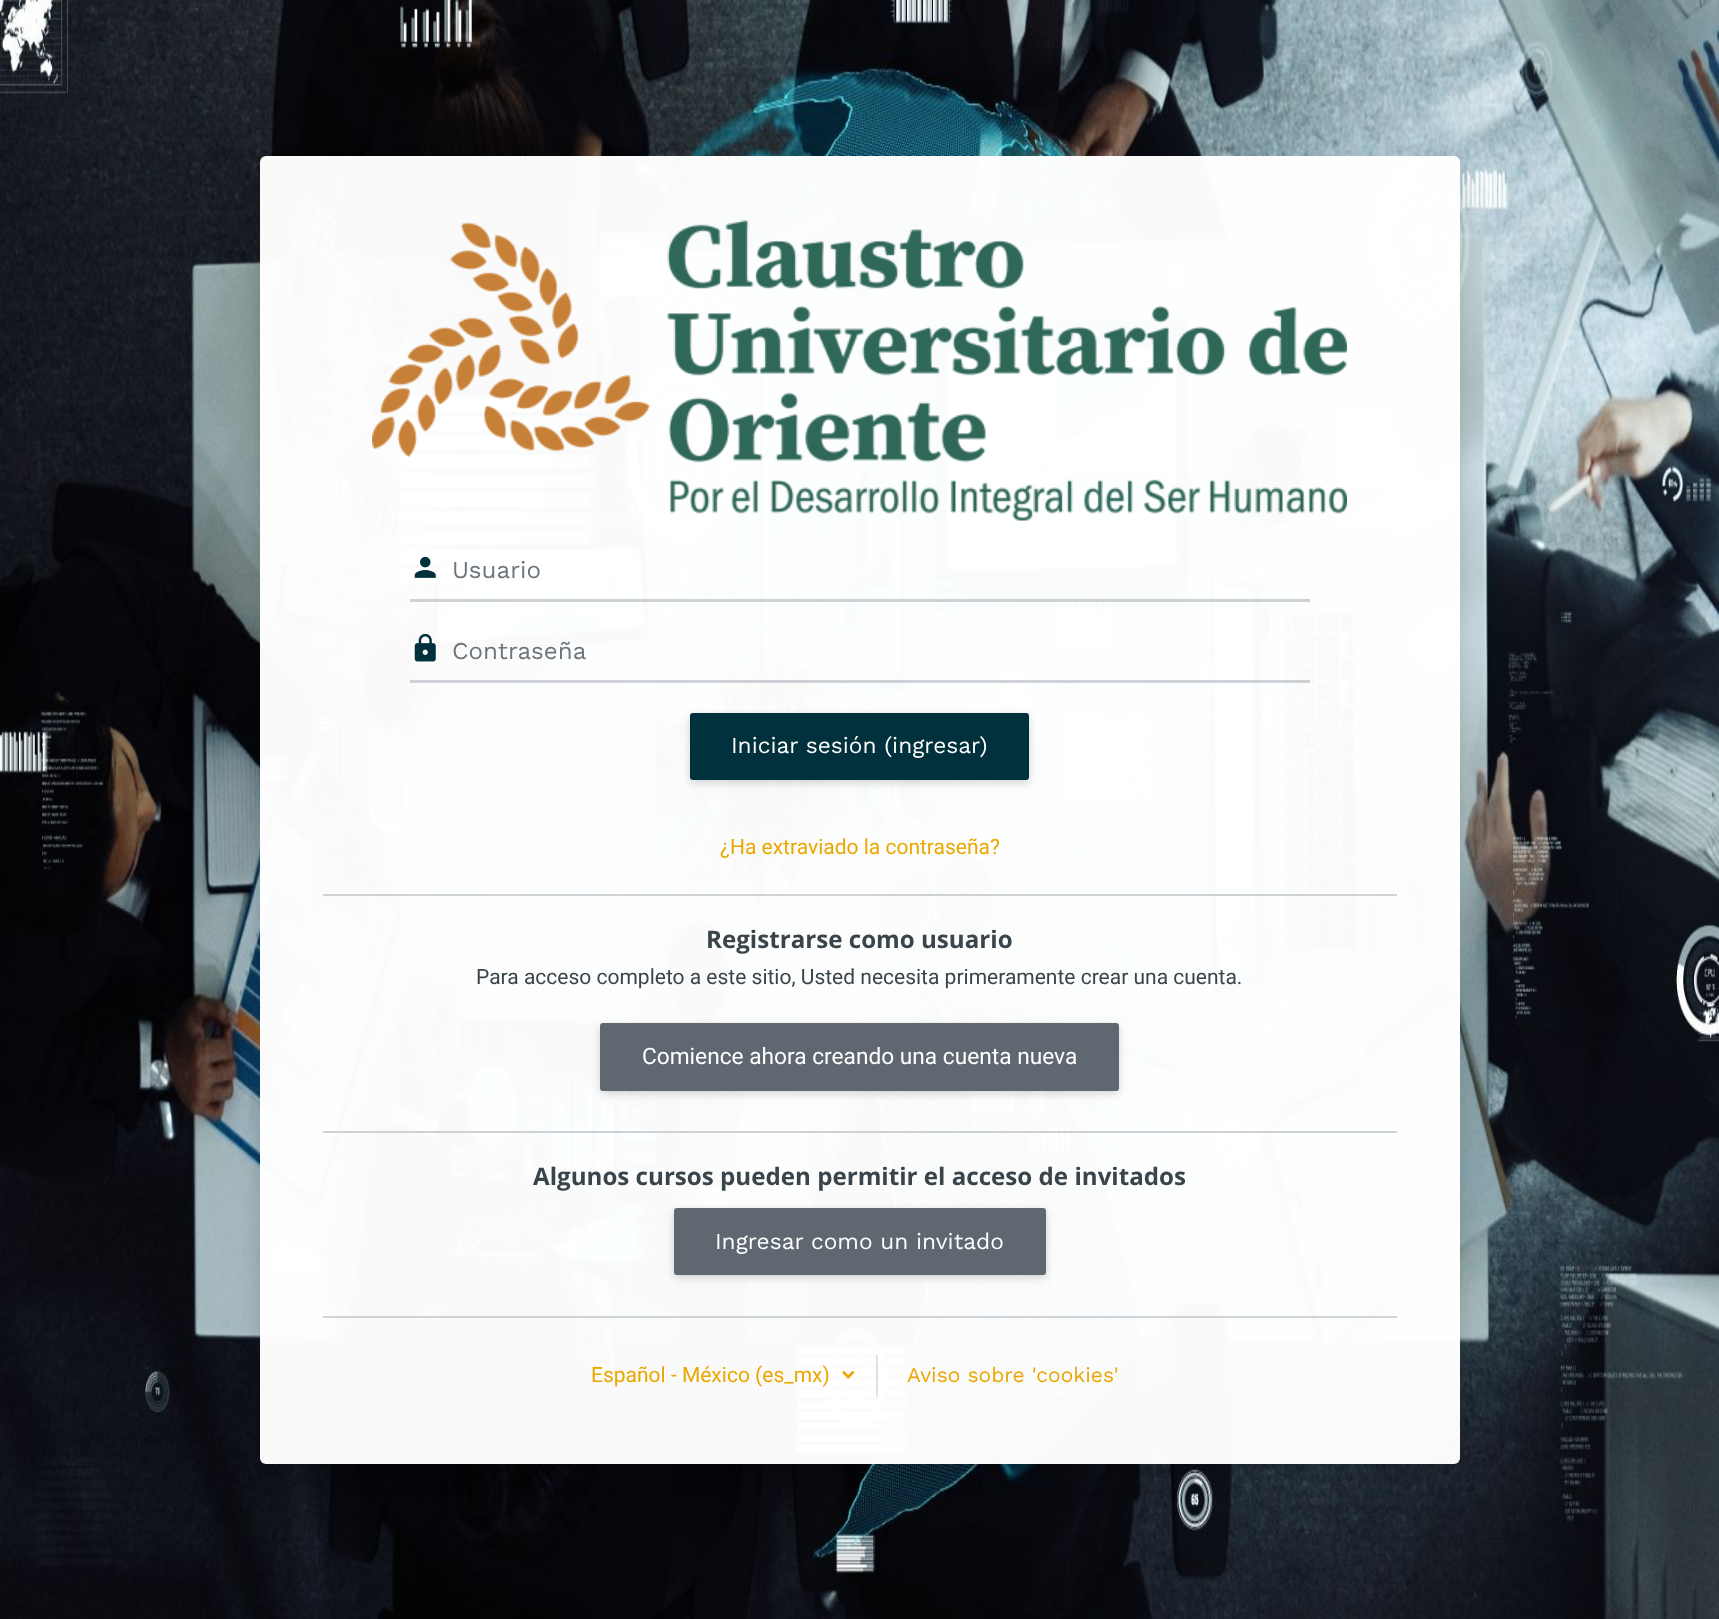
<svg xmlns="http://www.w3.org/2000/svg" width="1719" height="1619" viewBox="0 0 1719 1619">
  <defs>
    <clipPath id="clip1"><path d="M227 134H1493V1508H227ZM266 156H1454C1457.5 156 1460 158.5 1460 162V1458C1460 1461.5 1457.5 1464 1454 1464H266C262.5 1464 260 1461.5 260 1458V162C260 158.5 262.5 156 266 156Z" clip-rule="evenodd"/></clipPath>
  </defs>
  <rect width="100%" height="100%" fill="rgb(255,255,255)"/>
  <image x="0" y="0" width="1719" height="1619" href="pic1.png"/>
  <g clip-path="url(#clip1)">
    <rect x="260" y="167" width="1200" height="1308" rx="6" fill="rgba(0,0,0,0.15)" filter="blur(10.5px)"/>
  </g>
  <rect x="260" y="156" width="1200" height="1308" rx="6" fill="rgba(255,255,255,0.98)"/>
  <image x="372" y="220" width="975" height="301" href="pic2.png"/>
  <image x="414" y="556" width="22" height="22" href="pic3.png"/>
  <rect x="410" y="599" width="900" height="3" fill="rgba(120,130,140,0.35)"/>
  <text x="452" y="578" font-family="Work Sans" font-size="24.15" fill="rgb(108,117,125)">Usuario</text>
  <image x="414" y="633" width="22" height="29" href="pic4.png"/>
  <rect x="410" y="680" width="900" height="3" fill="rgba(120,130,140,0.35)"/>
  <text x="452" y="659" font-family="Work Sans" font-size="24.15" fill="rgb(108,117,125)">Contraseña</text>
  <rect x="690" y="716" width="339" height="67" rx="3" fill="rgba(0,0,0,0.16)" filter="blur(4px)"/>
  <rect x="690" y="713" width="339" height="67" rx="3" fill="rgb(1,49,60)"/>
  <text x="731" y="753" font-family="Work Sans" font-size="22.7" fill="rgb(255,255,255)">Iniciar sesión (ingresar)</text>
  <text x="720" y="854" font-family="Roboto" font-size="21" fill="rgb(235,166,0)">¿Ha extraviado la contraseña?</text>
  <rect x="323" y="894" width="1074" height="2" fill="rgba(120,130,140,0.35)"/>
  <text x="706" y="948" font-family="Open Sans" font-size="24.15" font-weight="bold" fill="rgb(58,69,75)">Registrarse como usuario</text>
  <text x="476" y="984" font-family="Roboto" font-size="21" fill="rgb(58,69,75)">Para acceso completo a este sitio, Usted necesita primeramente crear una cuenta.</text>
  <rect x="600" y="1026" width="519" height="68" rx="3" fill="rgba(0,0,0,0.16)" filter="blur(4px)"/>
  <rect x="600" y="1023" width="519" height="68" rx="3" fill="rgb(95,104,112)"/>
  <text x="642" y="1064" font-family="Roboto" font-size="22.7" fill="rgb(255,255,255)">Comience ahora creando una cuenta nueva</text>
  <rect x="323" y="1131" width="1074" height="2" fill="rgba(120,130,140,0.35)"/>
  <text x="533" y="1185" font-family="Open Sans" font-size="24.15" font-weight="bold" fill="rgb(58,69,75)">Algunos cursos pueden permitir el acceso de invitados</text>
  <rect x="674" y="1211" width="372" height="67" rx="3" fill="rgba(0,0,0,0.16)" filter="blur(4px)"/>
  <rect x="674" y="1208" width="372" height="67" rx="3" fill="rgb(95,104,112)"/>
  <text x="715" y="1249" font-family="Work Sans" font-size="22.7" fill="rgb(255,255,255)">Ingresar como un invitado</text>
  <rect x="323" y="1316" width="1074" height="2" fill="rgba(120,130,140,0.35)"/>
  <text x="591" y="1382" font-family="Roboto" font-size="21" fill="rgb(235,166,0)">Español - México (es_mx)</text>
  <image x="842" y="1371" width="13" height="8" href="pic5.png"/>
  <rect x="876" y="1355" width="2" height="42" fill="rgb(222,226,230)"/>
  <text x="907" y="1382" font-family="Work Sans" font-size="21" fill="rgb(235,166,0)">Aviso sobre 'cookies'</text>
</svg>
